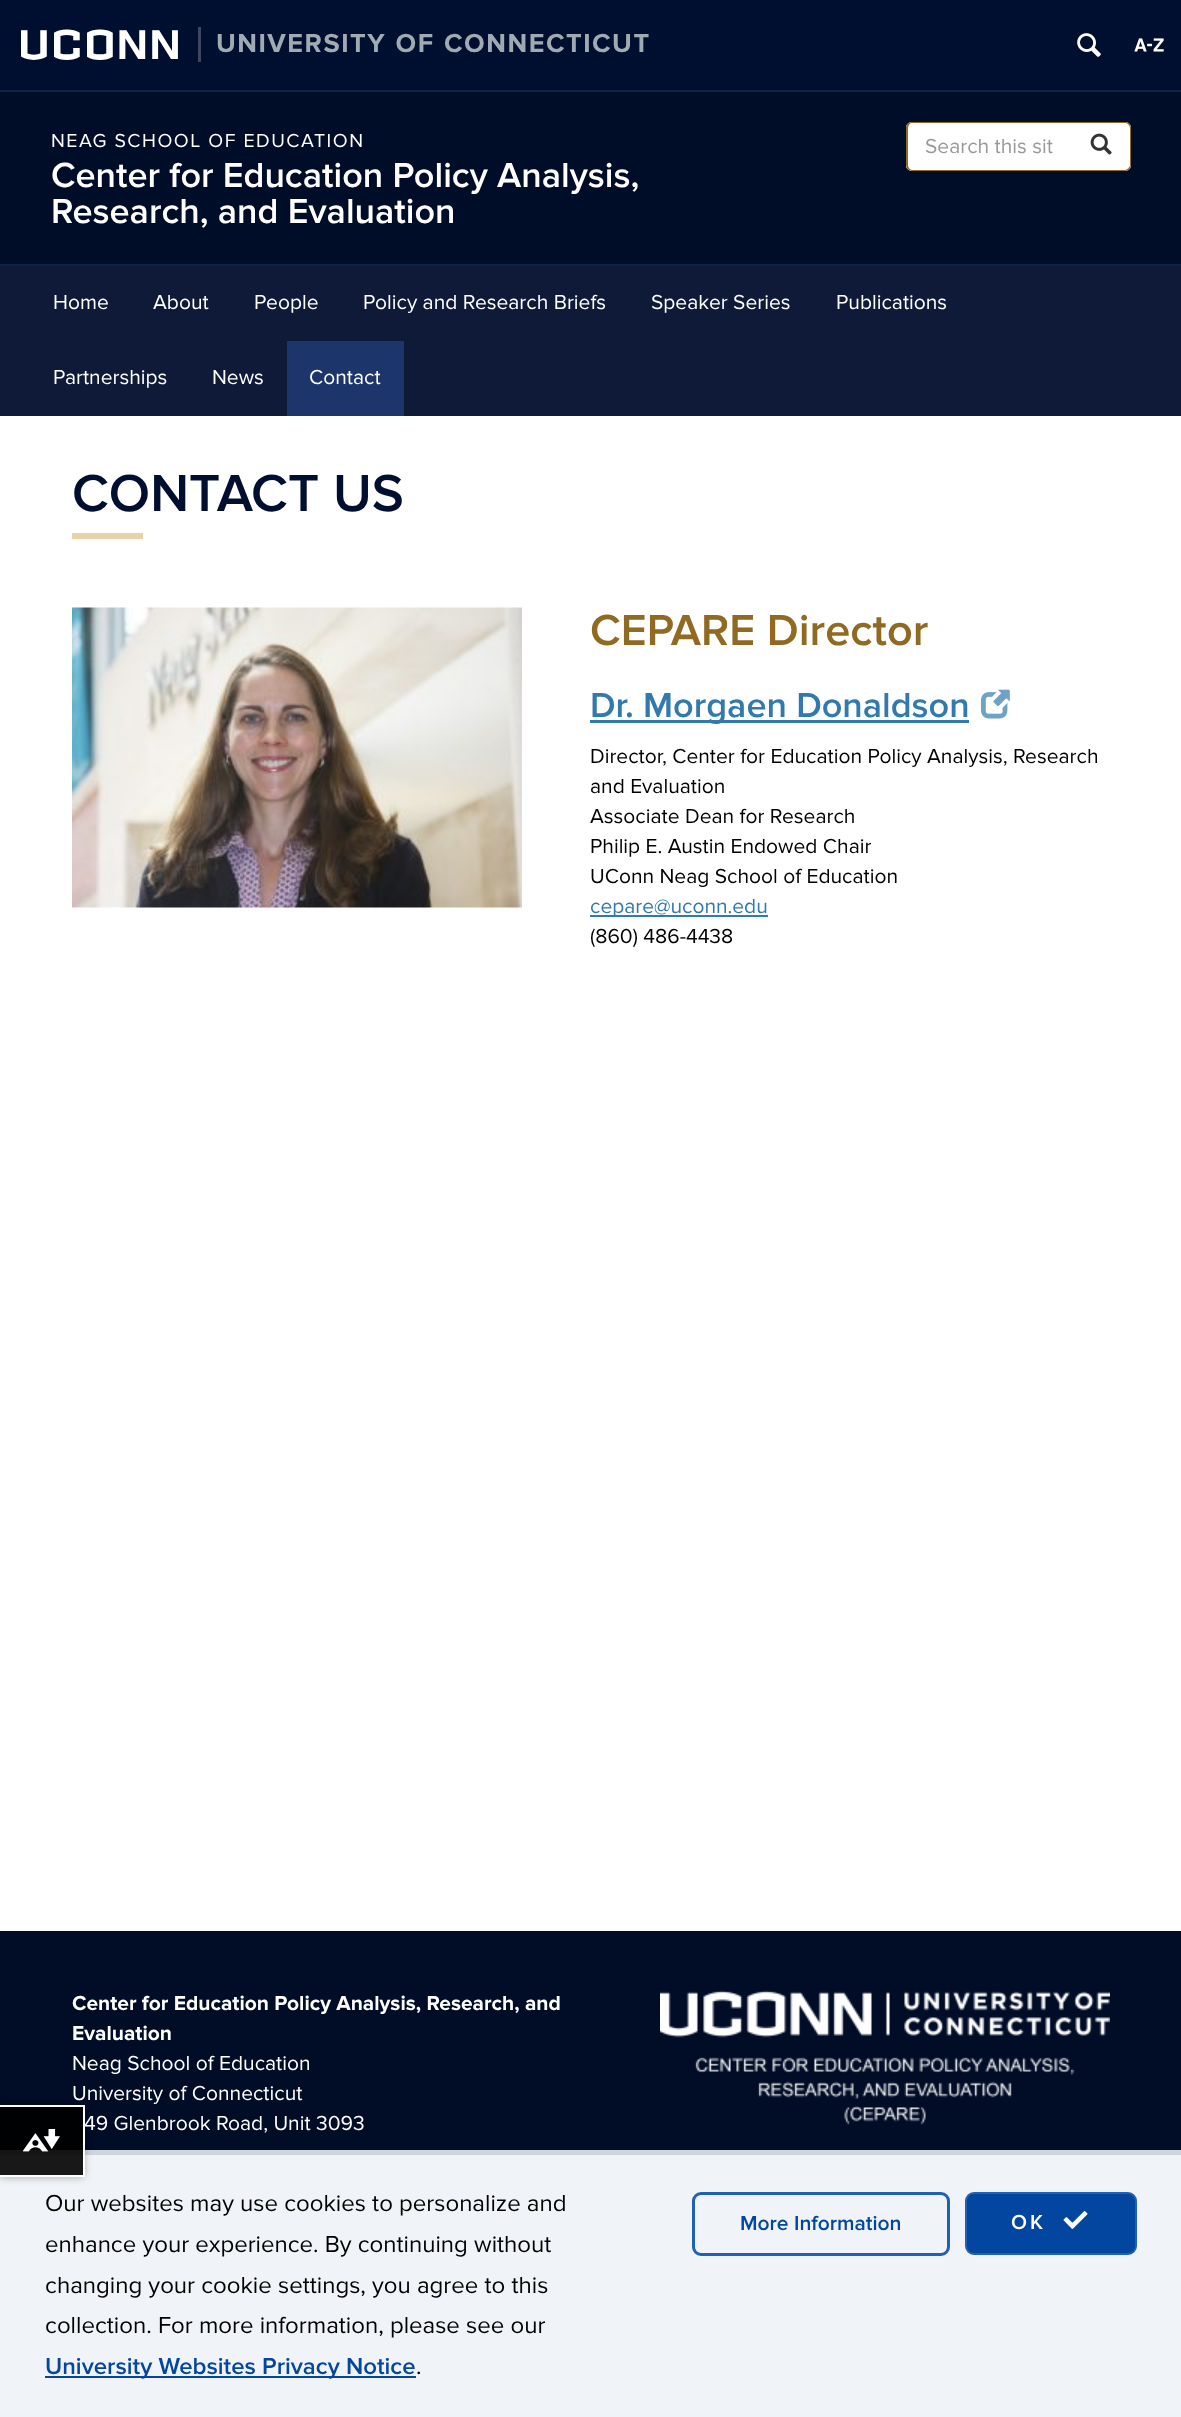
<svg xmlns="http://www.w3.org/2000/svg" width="1181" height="2417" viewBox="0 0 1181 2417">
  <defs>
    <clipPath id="clip1"><path d="M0 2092H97V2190H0ZM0 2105H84V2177H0Z" clip-rule="evenodd"/></clipPath>
  </defs>
  <rect width="100%" height="100%" fill="rgb(255,255,255)"/>
  <rect x="0" y="0" width="1181" height="90" fill="rgb(0,14,47)"/>
  <rect x="0" y="90" width="1181" height="2" fill="rgb(14,34,69)"/>
  <text x="21" y="59" font-family="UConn" font-size="48" letter-spacing="4.5" fill="rgb(255,255,255)">UCONN</text>
  <text x="216" y="52" word-spacing="1" font-family="Proxima Nova" font-size="27" font-weight="bold" letter-spacing="1.5" fill="rgb(159,170,178)">UNIVERSITY OF CONNECTICUT</text>
  <rect x="198" y="27" width="3" height="35" fill="rgb(63,71,96)"/>
  <image x="1077" y="33" width="24" height="24" href="pic1.png"/>
  <image x="1134" y="38" width="30" height="14" href="pic2.png"/>
  <rect x="0" y="1931" width="1181" height="219" fill="rgb(1,13,39)"/>
  <rect x="0" y="2155" width="1181" height="262" fill="rgb(240,243,247)"/>
  <rect x="0" y="2150" width="1181" height="5" fill="rgb(207,213,221)"/>
  <g clip-path="url(#clip1)">
    <rect x="0" y="2105" width="84" height="72" fill="rgba(0,0,0,0.3)" filter="blur(4px)"/>
  </g>
  <rect x="0" y="2107" width="83" height="68" fill="rgba(0,0,0,0.9)"/>
  <rect x="0" y="2105" width="84" height="2" fill="rgb(255,255,255)"/>
  <rect x="83" y="2105" width="2" height="72" fill="rgb(255,255,255)"/>
  <rect x="0" y="2175" width="84" height="2" fill="rgb(255,255,255)"/>
  <image x="23" y="2129" width="37" height="23" href="pic3.png"/>
  <rect x="0" y="92" width="1181" height="172" fill="rgb(0,13,41)"/>
  <text x="51" y="147" font-family="Proxima Nova" font-size="19.5" letter-spacing="1.5" fill="rgb(255,255,255)">NEAG SCHOOL OF EDUCATION</text>
  <g font-family="Proxima Nova" font-size="36" font-weight="600" fill="rgb(255,255,255)">
    <text>
      <tspan x="51" y="187">Center for Education Policy Analysis,</tspan>
      <tspan x="51" y="223">Research, and Evaluation</tspan>
    </text>
  </g>
  <path d="M912 122H1073V171H912C908.5 171 906 168.5 906 165V128C906 124.5 908.5 122 912 122Z" fill="rgb(255,255,255)"/>
  <path d="M912 122H1072V171H912C909 171 906 168 906 165V128C906 124 909 122 912 122ZM912 123H1072V170H912C910 170 908 167 908 165V128C908 125 910 123 912 123Z" fill="rgb(145,106,33)" fill-rule="evenodd"/>
  <text x="925" y="153" font-family="Proxima Nova" font-size="21" fill="rgb(153,153,153)">Search this sit</text>
  <path d="M1073 122H1125C1128.5 122 1131 124.5 1131 128V165C1131 168.5 1128.5 171 1125 171H1073Z" fill="rgb(255,255,255)"/>
  <path d="M1072 122H1125C1128 122 1131 124 1131 128V165C1131 168 1128 171 1125 171H1072ZM1072 123H1125C1127 123 1130 125 1130 128V165C1130 167 1127 170 1125 170H1072Z" fill="rgb(145,106,33)" fill-rule="evenodd"/>
  <image x="1090" y="133" width="22" height="22" href="pic4.png"/>
  <rect x="0" y="266" width="1181" height="150" fill="rgb(15,25,56)"/>
  <rect x="0" y="264" width="1181" height="2" fill="rgb(14,34,69)"/>
  <g font-family="Proxima Nova" font-size="21" fill="rgb(255,255,255)">
    <text x="53" y="309">Home</text>
    <text x="153" y="309">About</text>
    <text x="254" y="309">People</text>
    <text x="363" y="309">Policy and Research Briefs</text>
    <text x="651" y="309">Speaker Series</text>
    <text x="836" y="309">Publications</text>
    <text x="53" y="384">Partnerships</text>
    <text x="212" y="384">News</text>
  </g>
  <rect x="287" y="341" width="117" height="75" fill="rgb(28,53,107)"/>
  <text x="309" y="384" font-family="Proxima Nova" font-size="21" fill="rgb(255,255,255)">Contact</text>
  <text x="72" y="511" font-family="Proxima Nova" font-size="54" font-weight="600" fill="rgb(0,15,48)">CONTACT US</text>
  <rect x="72" y="533" width="71" height="6" fill="rgb(233,211,170)"/>
  <image x="72" y="607" width="450" height="301" href="pic5.png"/>
  <text x="590" y="645" font-family="Proxima Nova" font-size="45" font-weight="600" fill="rgb(145,106,33)">CEPARE Director</text>
  <rect x="590" y="720" width="379" height="3" fill="rgb(50,122,174)"/>
  <text x="590" y="717" font-family="Proxima Nova" font-size="36" font-weight="600" fill="rgb(50,122,174)">Dr. Morgaen Donaldson</text>
  <image x="981" y="689" width="29" height="30" href="pic6.png"/>
  <g font-family="Proxima Nova" font-size="21" fill="rgb(0,0,0)">
    <text>
      <tspan x="590" y="763">Director, Center for Education Policy Analysis, Research</tspan>
      <tspan x="590" y="793">and Evaluation</tspan>
      <tspan x="590" y="823">Associate Dean for Research</tspan>
      <tspan x="590" y="853">Philip E. Austin Endowed Chair</tspan>
      <tspan x="590" y="883">UConn Neag School of Education</tspan>
    </text>
  </g>
  <rect x="590" y="915" width="178" height="2" fill="rgb(50,122,174)"/>
  <text x="590" y="913" font-family="Proxima Nova" font-size="21" fill="rgb(50,122,174)">cepare@uconn.edu</text>
  <text x="590" y="943" font-family="Proxima Nova" font-size="21" fill="rgb(0,0,0)">(860) 486-4438</text>
  <text x="72" y="2010" font-family="Proxima Nova" font-size="21" font-weight="bold" fill="rgb(255,255,255)">Center for Education Policy Analysis, Research, and</text>
  <image x="660" y="1990" width="450" height="135" href="pic7.png"/>
  <text x="72" y="2040" font-family="Proxima Nova" font-size="21" font-weight="bold" fill="rgb(255,255,255)">Evaluation</text>
  <g font-family="Proxima Nova" font-size="21" fill="rgb(255,255,255)">
    <text>
      <tspan x="72" y="2070">Neag School of Education</tspan>
      <tspan x="72" y="2100">University of Connecticut</tspan>
    </text>
    <text x="84" y="2130">49 Glenbrook Road, Unit 3093</text>
  </g>
  <g font-family="Proxima Nova" font-size="24" fill="rgb(0,0,0)">
    <text>
      <tspan x="45" y="2211">Our websites may use cookies to personalize and</tspan>
      <tspan x="45" y="2252">enhance your experience. By continuing without</tspan>
      <tspan x="45" y="2293">changing your cookie settings, you agree to this</tspan>
      <tspan x="45" y="2333">collection. For more information, please see our</tspan>
    </text>
  </g>
  <rect x="45" y="2376" width="371" height="2" fill="rgb(3,70,159)"/>
  <text x="45" y="2374" font-family="Proxima Nova" font-size="24" font-weight="600" fill="rgb(3,70,159)">University Websites Privacy Notice</text>
  <text x="416" y="2374" font-family="Proxima Nova" font-size="24" fill="rgb(0,0,0)">.</text>
  <rect x="693.5" y="2193.5" width="255" height="61" rx="7.5" fill="none" stroke="rgb(32,97,182)" stroke-width="3"/>
  <text x="740" y="2230" font-family="Proxima Nova" font-size="21" font-weight="600" fill="rgb(3,70,159)">More Information</text>
  <rect x="966" y="2193" width="170" height="61" rx="8" fill="rgb(3,70,159)" stroke="rgb(32,97,182)" stroke-width="2"/>
  <text x="1011" y="2229" font-family="Proxima Nova" font-size="21" font-weight="600" letter-spacing="3" fill="rgb(255,255,255)">OK</text>
  <image x="1063" y="2211" width="25" height="18" href="pic8.png"/>
</svg>
